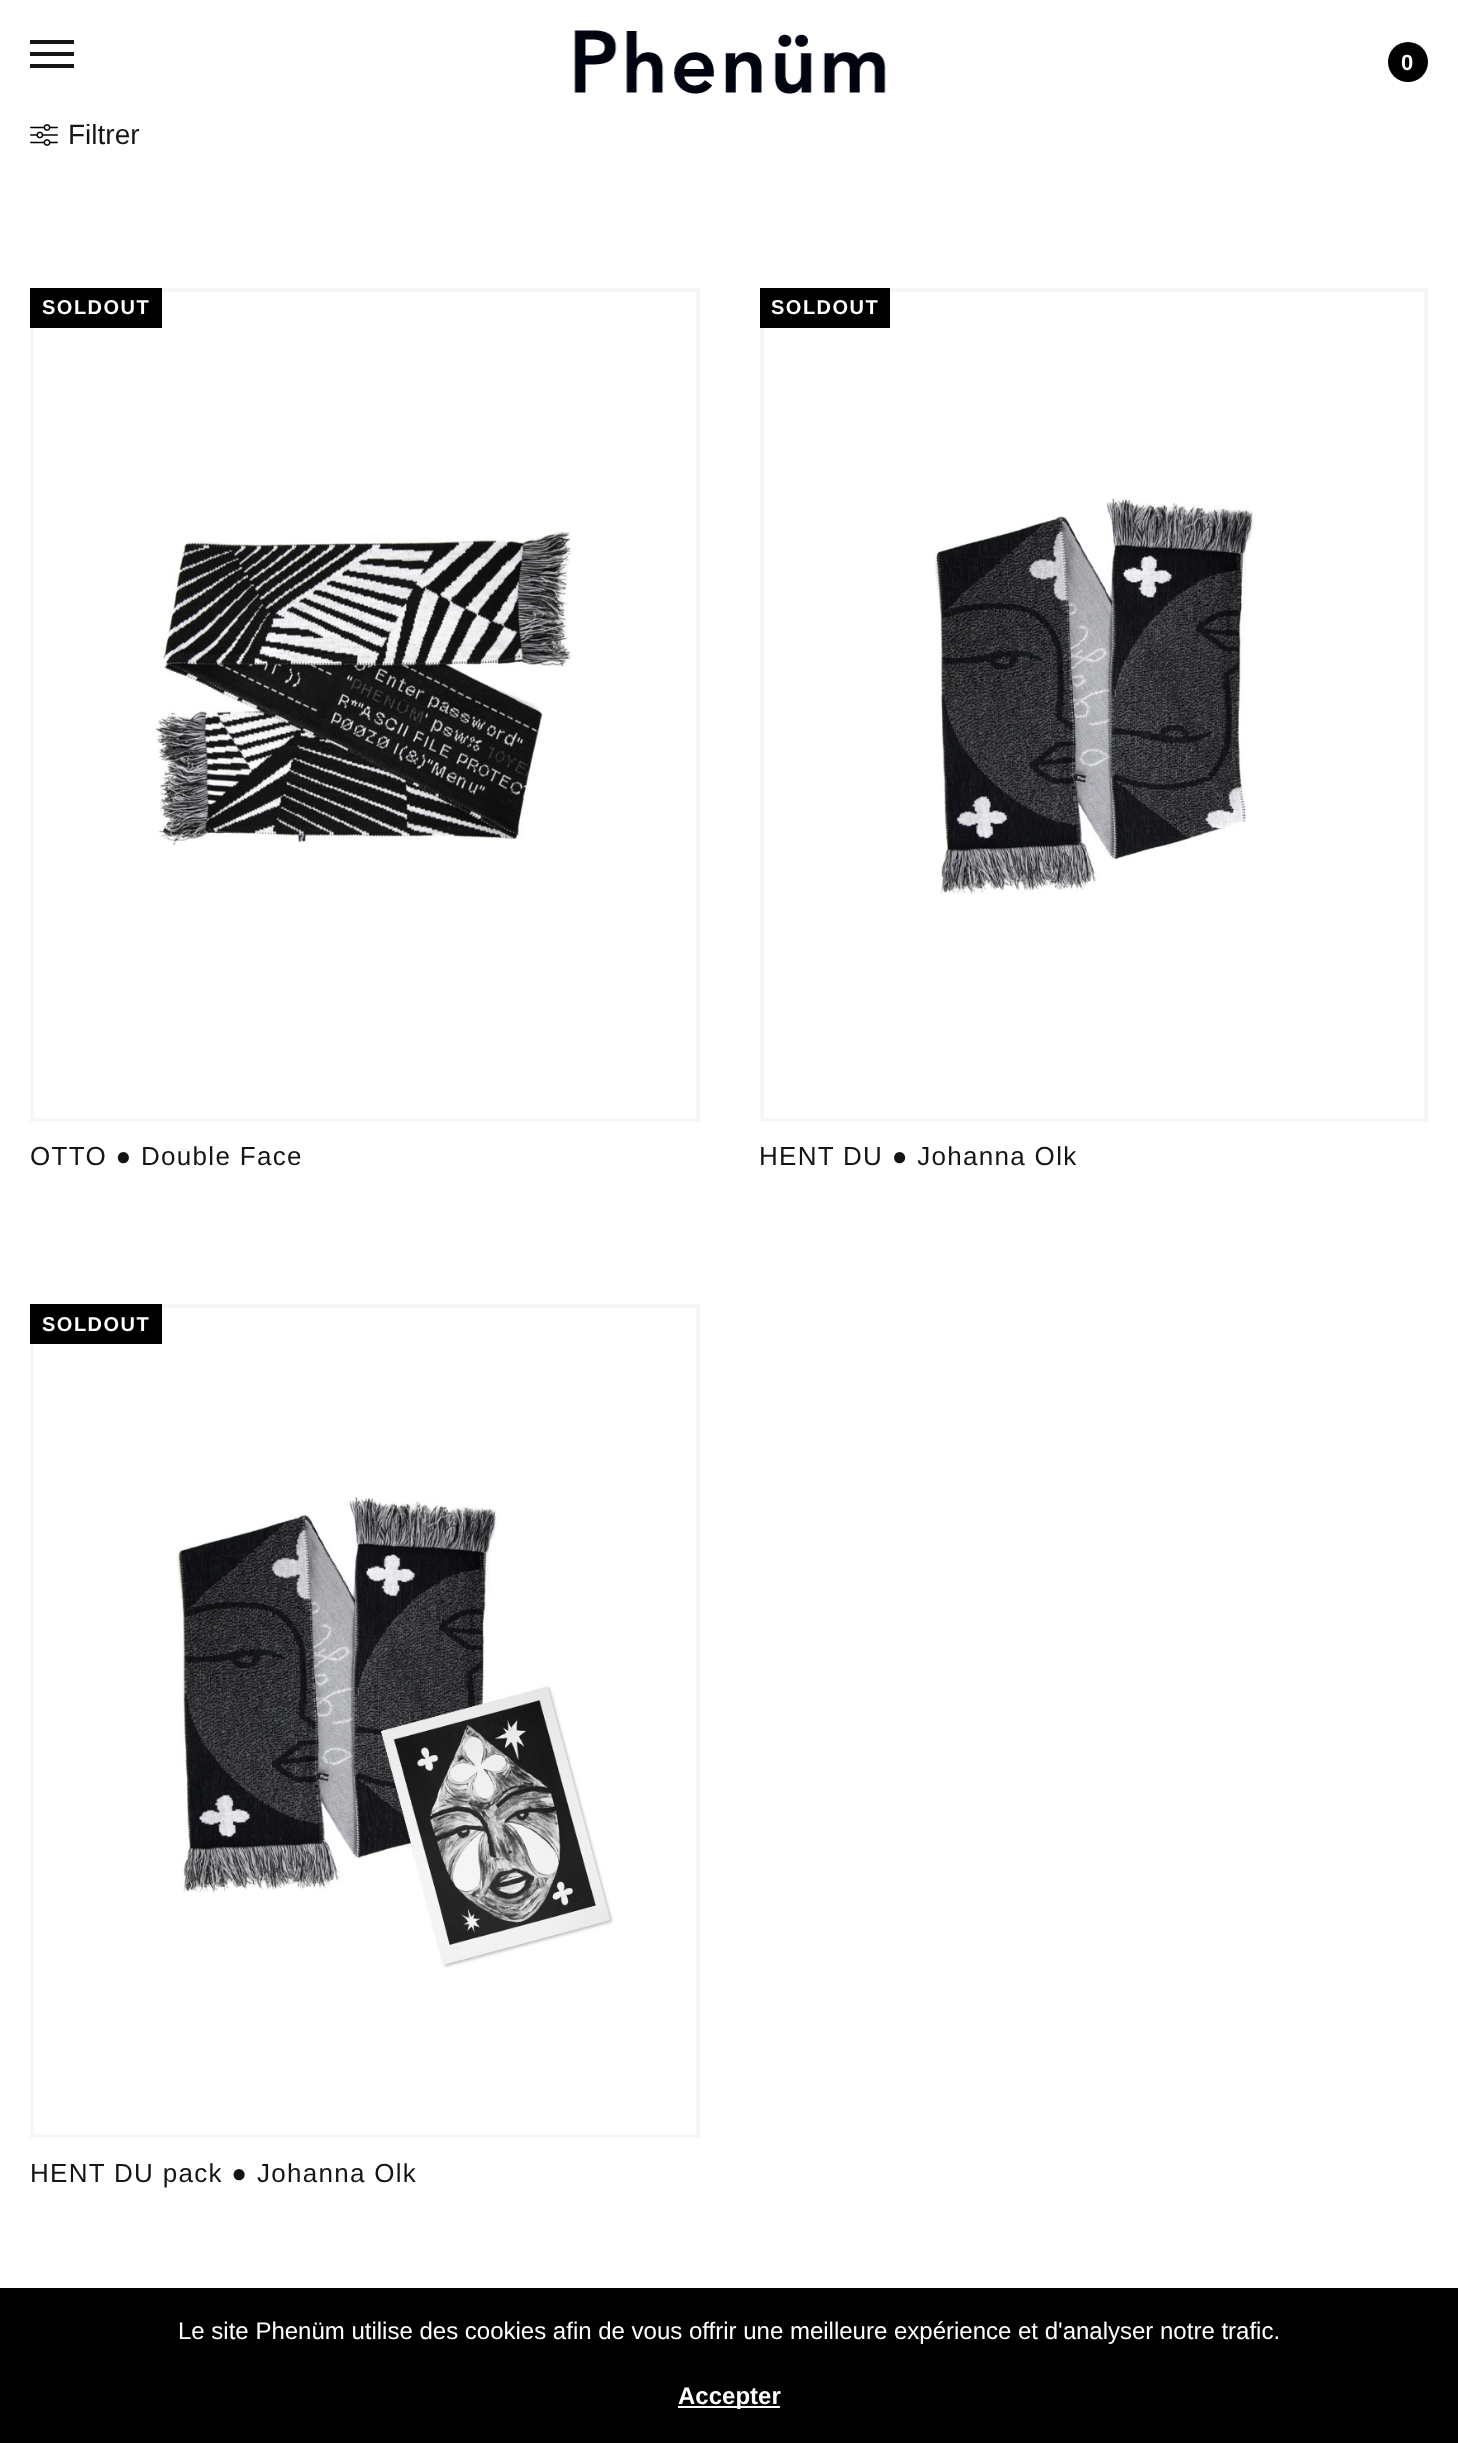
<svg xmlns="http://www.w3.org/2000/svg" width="1458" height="2443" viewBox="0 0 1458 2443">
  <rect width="100%" height="100%" fill="rgb(255,255,255)"/>
  <text x="68" y="144" font-family="Liberation Sans" font-size="28" fill="rgb(21,21,21)">Filtrer</text>
  <rect x="87" y="123" width="9" height="1" fill="rgb(255,255,255)"/>
  <rect x="30" y="40" width="44" height="4" fill="rgb(21,21,21)"/>
  <rect x="30" y="52" width="44" height="4" fill="rgb(21,21,21)"/>
  <rect x="30" y="64" width="44" height="4" fill="rgb(21,21,21)"/>
  <image x="574" y="30" width="312" height="64" href="pic1.png"/>
  <circle cx="1408" cy="62" r="20" fill="rgb(0,0,0)"/>
  <text x="1401" y="70" font-family="Liberation Sans" font-size="22" font-weight="bold" letter-spacing="2" fill="rgb(255,255,255)">0</text>
  <image x="30" y="124" width="28" height="22" href="pic2.png"/>
  <rect x="32" y="290" width="666" height="830" fill="none" stroke="rgb(247,246,247)" stroke-width="4"/>
  <image x="155" y="531" width="417" height="315" href="pic3.png"/>
  <rect x="30" y="288" width="132" height="40" fill="rgb(0,0,0)"/>
  <text x="42" y="314" font-family="Liberation Sans" font-size="20" font-weight="bold" letter-spacing="1.5" fill="rgb(255,255,255)">SOLDOUT</text>
  <text x="30" y="1165" font-family="Liberation Sans" font-size="26" letter-spacing="1.3" fill="rgb(21,21,21)">OTTO ● Double Face</text>
  <rect x="762" y="290" width="664" height="830" fill="none" stroke="rgb(247,246,247)" stroke-width="4"/>
  <image x="934" y="498" width="320" height="397" href="pic4.png"/>
  <rect x="760" y="288" width="130" height="40" fill="rgb(0,0,0)"/>
  <text x="771" y="314" font-family="Liberation Sans" font-size="20" font-weight="bold" letter-spacing="1.5" fill="rgb(255,255,255)">SOLDOUT</text>
  <text x="759" y="1165" font-family="Liberation Sans" font-size="26" letter-spacing="1.3" fill="rgb(21,21,21)">HENT DU ● Johanna Olk</text>
  <rect x="32" y="1306" width="666" height="830" fill="none" stroke="rgb(247,246,247)" stroke-width="4"/>
  <image x="176" y="1497" width="438" height="471" href="pic5.png"/>
  <rect x="30" y="1304" width="132" height="40" fill="rgb(0,0,0)"/>
  <text x="42" y="1331" font-family="Liberation Sans" font-size="20" font-weight="bold" letter-spacing="1.5" fill="rgb(255,255,255)">SOLDOUT</text>
  <text x="30" y="2182" font-family="Liberation Sans" font-size="26" letter-spacing="1.3" fill="rgb(21,21,21)">HENT DU pack ● Johanna Olk</text>
  <rect x="0" y="2288" width="1458" height="155" fill="rgb(0,0,0)"/>
  <text x="178" y="2339" font-family="Liberation Sans" font-size="24" fill="rgb(255,255,255)">Le site Phenüm utilise des cookies afin de vous offrir une meilleure expérience et d'analyser notre trafic.</text>
  <rect x="678" y="2406" width="102" height="2" fill="rgb(255,255,255)"/>
  <text x="678" y="2404" font-family="Liberation Sans" font-size="24" font-weight="bold" fill="rgb(255,255,255)">Accepter</text>
</svg>
